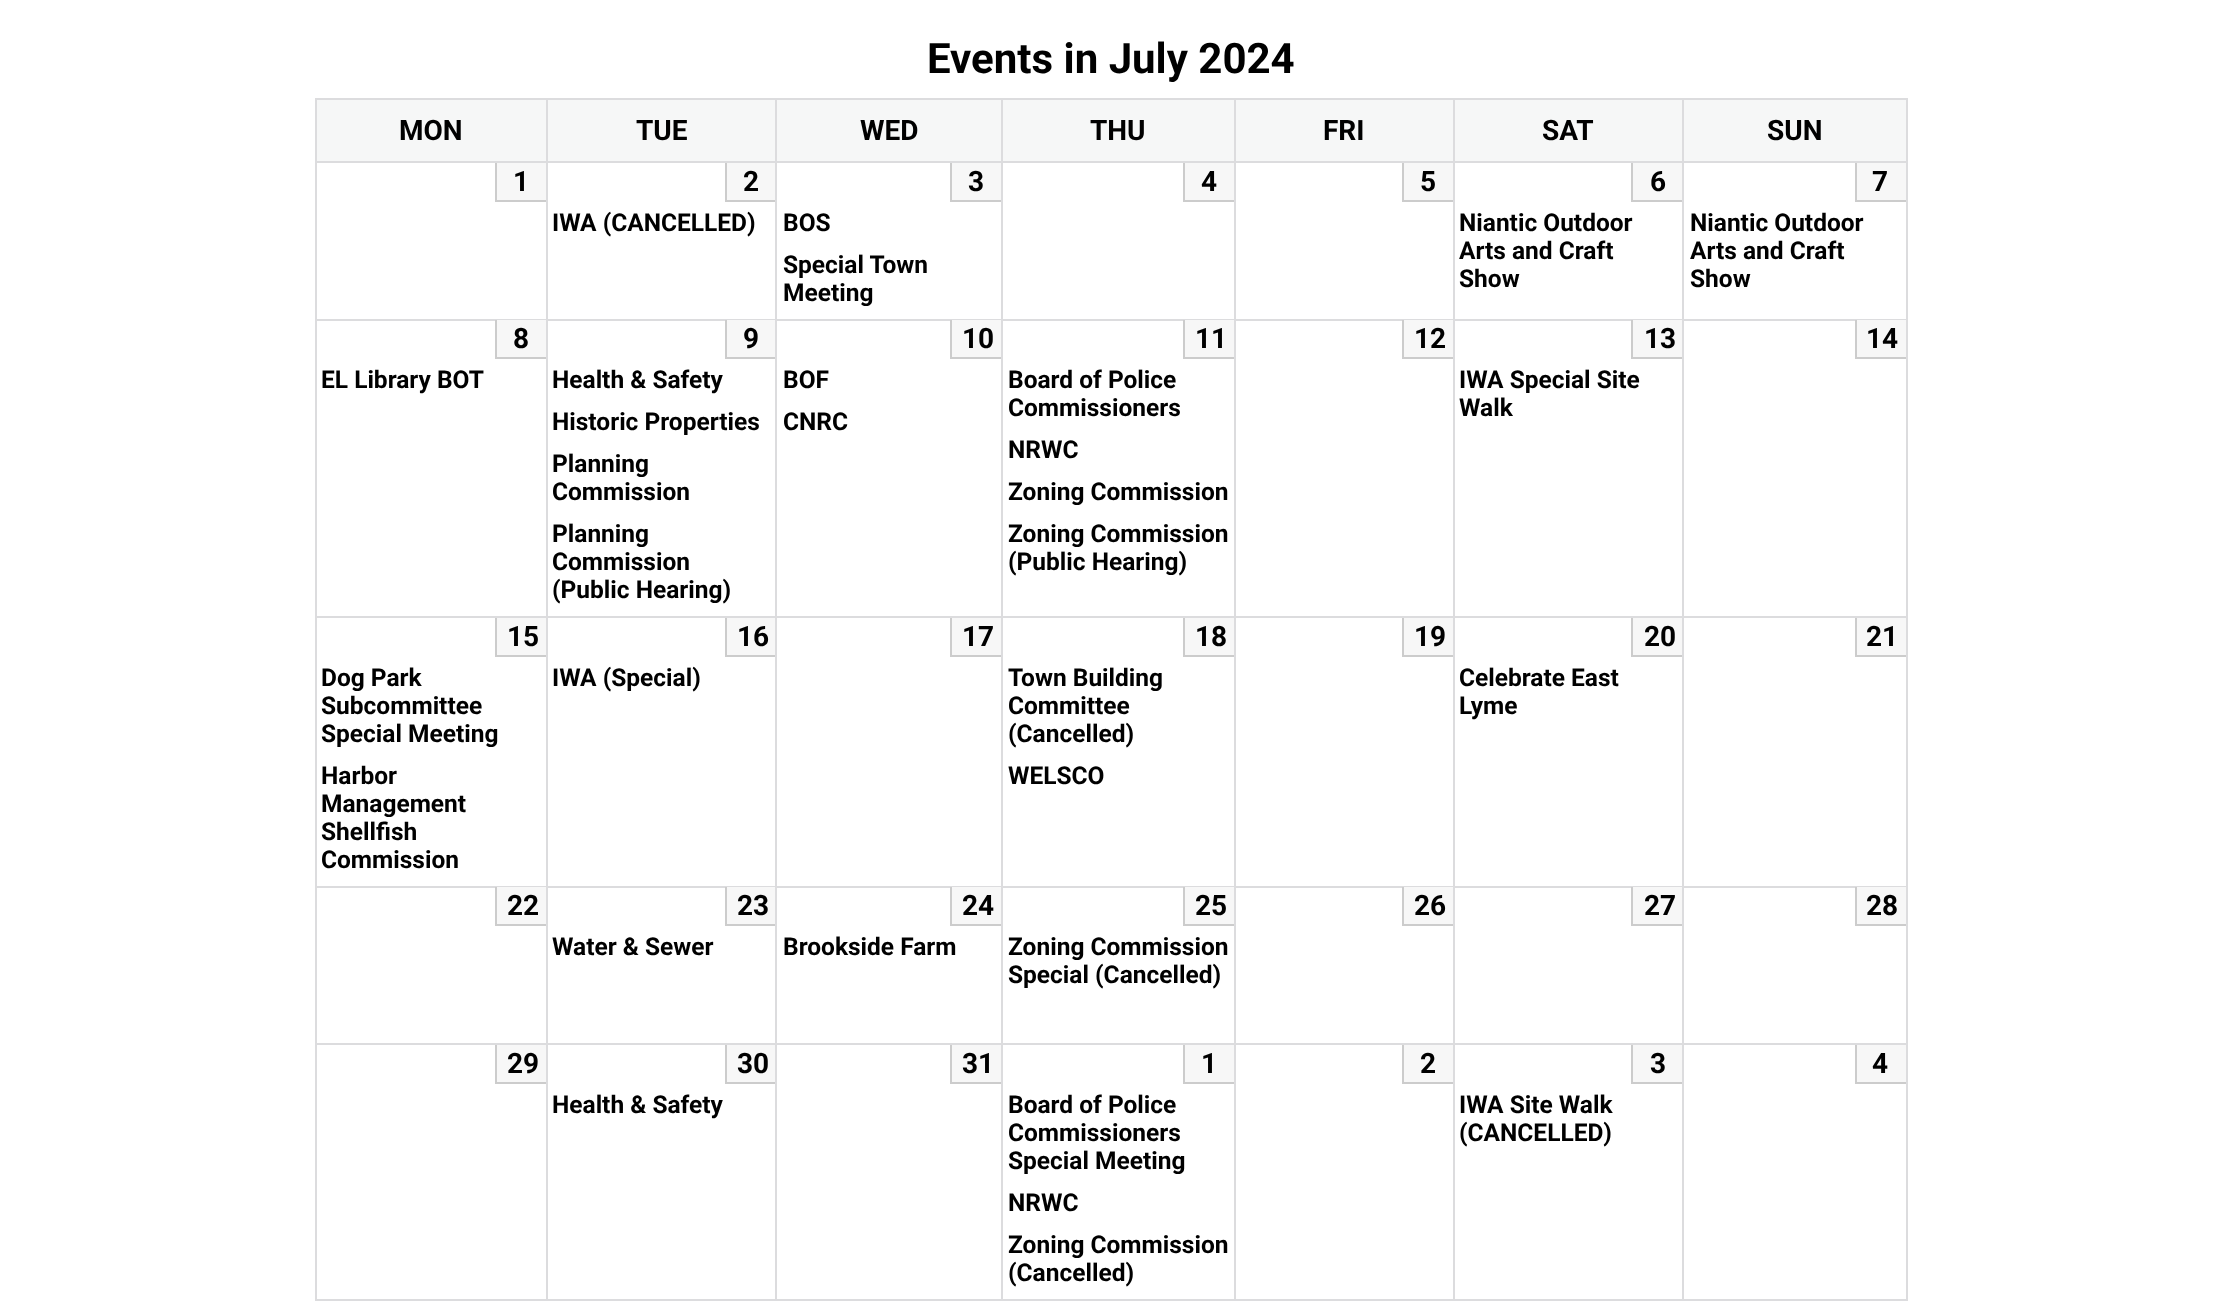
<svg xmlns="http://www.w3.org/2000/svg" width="2220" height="1303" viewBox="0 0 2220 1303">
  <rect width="100%" height="100%" fill="rgb(255,255,255)"/>
  <text x="927" y="73" font-family="Roboto" font-size="42" font-weight="bold" fill="rgb(0,0,0)">Events in July 2024</text>
  <rect x="315" y="98" width="1593" height="2" fill="rgb(220,220,222)"/>
  <rect x="315" y="98" width="2" height="1202" fill="rgb(220,220,222)"/>
  <rect x="317" y="100" width="229" height="61" fill="rgb(246,247,247)"/>
  <text x="399" y="140" font-family="Roboto" font-size="28" font-weight="bold" fill="rgb(0,0,0)">MON</text>
  <rect x="548" y="100" width="227" height="61" fill="rgb(246,247,247)"/>
  <rect x="1682" y="161" width="226" height="2" fill="rgb(220,220,222)"/>
  <rect x="1682" y="319" width="226" height="2" fill="rgb(220,220,222)"/>
  <rect x="1682" y="616" width="226" height="2" fill="rgb(220,220,222)"/>
  <rect x="1682" y="886" width="226" height="2" fill="rgb(220,220,222)"/>
  <rect x="1682" y="1043" width="226" height="2" fill="rgb(220,220,222)"/>
  <rect x="1906" y="1043" width="2" height="257" fill="rgb(220,220,222)"/>
  <rect x="1682" y="1299" width="226" height="2" fill="rgb(220,220,222)"/>
  <rect x="1682" y="1043" width="2" height="257" fill="rgb(220,220,222)"/>
  <rect x="1453" y="1043" width="231" height="2" fill="rgb(220,220,222)"/>
  <rect x="1682" y="886" width="2" height="159" fill="rgb(220,220,222)"/>
  <rect x="1453" y="886" width="231" height="2" fill="rgb(220,220,222)"/>
  <rect x="1682" y="616" width="2" height="271" fill="rgb(220,220,222)"/>
  <rect x="1453" y="616" width="231" height="2" fill="rgb(220,220,222)"/>
  <rect x="1682" y="319" width="2" height="299" fill="rgb(220,220,222)"/>
  <rect x="1453" y="319" width="231" height="2" fill="rgb(220,220,222)"/>
  <rect x="1682" y="161" width="2" height="159" fill="rgb(220,220,222)"/>
  <rect x="1453" y="161" width="231" height="2" fill="rgb(220,220,222)"/>
  <rect x="1453" y="1299" width="231" height="2" fill="rgb(220,220,222)"/>
  <rect x="1453" y="1043" width="2" height="257" fill="rgb(220,220,222)"/>
  <rect x="1234" y="1043" width="220" height="2" fill="rgb(220,220,222)"/>
  <rect x="1453" y="886" width="2" height="159" fill="rgb(220,220,222)"/>
  <rect x="1234" y="886" width="220" height="2" fill="rgb(220,220,222)"/>
  <rect x="1453" y="616" width="2" height="271" fill="rgb(220,220,222)"/>
  <rect x="1234" y="616" width="220" height="2" fill="rgb(220,220,222)"/>
  <rect x="1453" y="319" width="2" height="299" fill="rgb(220,220,222)"/>
  <rect x="1234" y="319" width="220" height="2" fill="rgb(220,220,222)"/>
  <rect x="1453" y="161" width="2" height="159" fill="rgb(220,220,222)"/>
  <rect x="1234" y="161" width="220" height="2" fill="rgb(220,220,222)"/>
  <rect x="1234" y="1299" width="220" height="2" fill="rgb(220,220,222)"/>
  <rect x="1234" y="1043" width="2" height="257" fill="rgb(220,220,222)"/>
  <rect x="1001" y="1043" width="235" height="2" fill="rgb(220,220,222)"/>
  <rect x="1234" y="886" width="2" height="159" fill="rgb(220,220,222)"/>
  <rect x="1001" y="886" width="235" height="2" fill="rgb(220,220,222)"/>
  <rect x="1234" y="616" width="2" height="271" fill="rgb(220,220,222)"/>
  <rect x="1001" y="616" width="235" height="2" fill="rgb(220,220,222)"/>
  <rect x="1234" y="319" width="2" height="299" fill="rgb(220,220,222)"/>
  <rect x="1001" y="319" width="235" height="2" fill="rgb(220,220,222)"/>
  <rect x="1234" y="161" width="2" height="159" fill="rgb(220,220,222)"/>
  <rect x="1001" y="161" width="235" height="2" fill="rgb(220,220,222)"/>
  <rect x="1001" y="1299" width="235" height="2" fill="rgb(220,220,222)"/>
  <rect x="1001" y="1043" width="2" height="257" fill="rgb(220,220,222)"/>
  <rect x="775" y="1043" width="228" height="2" fill="rgb(220,220,222)"/>
  <rect x="1001" y="886" width="2" height="159" fill="rgb(220,220,222)"/>
  <rect x="775" y="886" width="228" height="2" fill="rgb(220,220,222)"/>
  <rect x="1001" y="616" width="2" height="271" fill="rgb(220,220,222)"/>
  <rect x="775" y="616" width="228" height="2" fill="rgb(220,220,222)"/>
  <rect x="1001" y="319" width="2" height="299" fill="rgb(220,220,222)"/>
  <rect x="775" y="319" width="228" height="2" fill="rgb(220,220,222)"/>
  <rect x="1001" y="161" width="2" height="159" fill="rgb(220,220,222)"/>
  <rect x="775" y="161" width="228" height="2" fill="rgb(220,220,222)"/>
  <rect x="775" y="1299" width="228" height="2" fill="rgb(220,220,222)"/>
  <rect x="775" y="1043" width="2" height="257" fill="rgb(220,220,222)"/>
  <rect x="546" y="1043" width="231" height="2" fill="rgb(220,220,222)"/>
  <rect x="775" y="886" width="2" height="159" fill="rgb(220,220,222)"/>
  <rect x="546" y="886" width="231" height="2" fill="rgb(220,220,222)"/>
  <rect x="775" y="616" width="2" height="271" fill="rgb(220,220,222)"/>
  <rect x="546" y="616" width="231" height="2" fill="rgb(220,220,222)"/>
  <rect x="775" y="319" width="2" height="299" fill="rgb(220,220,222)"/>
  <rect x="546" y="319" width="231" height="2" fill="rgb(220,220,222)"/>
  <rect x="775" y="161" width="2" height="159" fill="rgb(220,220,222)"/>
  <rect x="546" y="161" width="231" height="2" fill="rgb(220,220,222)"/>
  <rect x="546" y="1299" width="231" height="2" fill="rgb(220,220,222)"/>
  <rect x="546" y="1043" width="2" height="257" fill="rgb(220,220,222)"/>
  <rect x="315" y="1043" width="233" height="2" fill="rgb(220,220,222)"/>
  <rect x="546" y="886" width="2" height="159" fill="rgb(220,220,222)"/>
  <rect x="315" y="886" width="233" height="2" fill="rgb(220,220,222)"/>
  <rect x="546" y="616" width="2" height="271" fill="rgb(220,220,222)"/>
  <rect x="315" y="616" width="233" height="2" fill="rgb(220,220,222)"/>
  <rect x="546" y="319" width="2" height="299" fill="rgb(220,220,222)"/>
  <rect x="315" y="319" width="233" height="2" fill="rgb(220,220,222)"/>
  <rect x="546" y="161" width="2" height="159" fill="rgb(220,220,222)"/>
  <rect x="315" y="161" width="233" height="2" fill="rgb(220,220,222)"/>
  <rect x="546" y="98" width="2" height="65" fill="rgb(220,220,222)"/>
  <text x="636" y="140" font-family="Roboto" font-size="28" font-weight="bold" fill="rgb(0,0,0)">TUE</text>
  <rect x="777" y="100" width="224" height="61" fill="rgb(246,247,247)"/>
  <rect x="775" y="98" width="2" height="65" fill="rgb(220,220,222)"/>
  <text x="860" y="140" font-family="Roboto" font-size="28" font-weight="bold" fill="rgb(0,0,0)">WED</text>
  <rect x="1003" y="100" width="231" height="61" fill="rgb(246,247,247)"/>
  <rect x="1001" y="98" width="2" height="65" fill="rgb(220,220,222)"/>
  <text x="1090" y="140" font-family="Roboto" font-size="28" font-weight="bold" fill="rgb(0,0,0)">THU</text>
  <rect x="1236" y="100" width="217" height="61" fill="rgb(246,247,247)"/>
  <rect x="1234" y="98" width="2" height="65" fill="rgb(220,220,222)"/>
  <text x="1323" y="140" font-family="Roboto" font-size="28" font-weight="bold" fill="rgb(0,0,0)">FRI</text>
  <rect x="1455" y="100" width="227" height="61" fill="rgb(246,247,247)"/>
  <rect x="1453" y="98" width="2" height="65" fill="rgb(220,220,222)"/>
  <text x="1542" y="140" font-family="Roboto" font-size="28" font-weight="bold" fill="rgb(0,0,0)">SAT</text>
  <rect x="1684" y="100" width="222" height="61" fill="rgb(246,247,247)"/>
  <rect x="1682" y="98" width="2" height="65" fill="rgb(220,220,222)"/>
  <text x="1767" y="140" font-family="Roboto" font-size="28" font-weight="bold" fill="rgb(0,0,0)">SUN</text>
  <rect x="497" y="163" width="49" height="37" fill="rgb(247,247,247)"/>
  <rect x="495" y="200" width="51" height="2" fill="rgb(204,204,204)"/>
  <rect x="495" y="163" width="2" height="38" fill="rgb(204,204,204)"/>
  <text x="513" y="191" font-family="Roboto" font-size="28" font-weight="bold" fill="rgb(0,0,0)">1</text>
  <rect x="727" y="163" width="48" height="37" fill="rgb(247,247,247)"/>
  <rect x="725" y="200" width="50" height="2" fill="rgb(204,204,204)"/>
  <rect x="725" y="163" width="2" height="38" fill="rgb(204,204,204)"/>
  <text x="743" y="191" font-family="Roboto" font-size="28" font-weight="bold" fill="rgb(0,0,0)">2</text>
  <text x="552" y="231" font-family="Roboto" font-size="24.5" font-weight="bold" fill="rgb(0,0,0)">IWA (CANCELLED)</text>
  <rect x="952" y="163" width="49" height="37" fill="rgb(247,247,247)"/>
  <rect x="950" y="200" width="51" height="2" fill="rgb(204,204,204)"/>
  <rect x="950" y="163" width="2" height="38" fill="rgb(204,204,204)"/>
  <text x="968" y="191" font-family="Roboto" font-size="28" font-weight="bold" fill="rgb(0,0,0)">3</text>
  <g font-family="Roboto" font-size="24.5" font-weight="bold" fill="rgb(0,0,0)">
    <text>
      <tspan x="783" y="231">BOS</tspan>
      <tspan x="783" y="273">Special Town</tspan>
      <tspan x="783" y="301">Meeting</tspan>
    </text>
  </g>
  <rect x="1185" y="163" width="49" height="37" fill="rgb(247,247,247)"/>
  <rect x="1183" y="200" width="51" height="2" fill="rgb(204,204,204)"/>
  <rect x="1183" y="163" width="2" height="38" fill="rgb(204,204,204)"/>
  <text x="1201" y="191" font-family="Roboto" font-size="28" font-weight="bold" fill="rgb(0,0,0)">4</text>
  <rect x="1404" y="163" width="49" height="37" fill="rgb(247,247,247)"/>
  <rect x="1402" y="200" width="51" height="2" fill="rgb(204,204,204)"/>
  <rect x="1402" y="163" width="2" height="38" fill="rgb(204,204,204)"/>
  <text x="1420" y="191" font-family="Roboto" font-size="28" font-weight="bold" fill="rgb(0,0,0)">5</text>
  <rect x="1633" y="163" width="49" height="37" fill="rgb(247,247,247)"/>
  <rect x="1631" y="200" width="51" height="2" fill="rgb(204,204,204)"/>
  <rect x="1631" y="163" width="2" height="38" fill="rgb(204,204,204)"/>
  <text x="1650" y="191" font-family="Roboto" font-size="28" font-weight="bold" fill="rgb(0,0,0)">6</text>
  <g font-family="Roboto" font-size="24.5" font-weight="bold" fill="rgb(0,0,0)">
    <text>
      <tspan x="1459" y="231">Niantic Outdoor</tspan>
      <tspan x="1459" y="259">Arts and Craft</tspan>
      <tspan x="1459" y="287">Show</tspan>
    </text>
  </g>
  <rect x="1906" y="886" width="2" height="159" fill="rgb(220,220,222)"/>
  <rect x="1906" y="616" width="2" height="271" fill="rgb(220,220,222)"/>
  <rect x="1906" y="319" width="2" height="299" fill="rgb(220,220,222)"/>
  <rect x="1906" y="98" width="2" height="222" fill="rgb(220,220,222)"/>
  <rect x="1857" y="163" width="49" height="37" fill="rgb(247,247,247)"/>
  <rect x="1855" y="200" width="51" height="2" fill="rgb(204,204,204)"/>
  <rect x="1855" y="163" width="2" height="38" fill="rgb(204,204,204)"/>
  <text x="1872" y="191" font-family="Roboto" font-size="28" font-weight="bold" fill="rgb(0,0,0)">7</text>
  <g font-family="Roboto" font-size="24.5" font-weight="bold" fill="rgb(0,0,0)">
    <text>
      <tspan x="1690" y="231">Niantic Outdoor</tspan>
      <tspan x="1690" y="259">Arts and Craft</tspan>
      <tspan x="1690" y="287">Show</tspan>
    </text>
  </g>
  <rect x="497" y="320" width="49" height="37" fill="rgb(247,247,247)"/>
  <rect x="495" y="357" width="51" height="2" fill="rgb(204,204,204)"/>
  <rect x="495" y="320" width="2" height="39" fill="rgb(204,204,204)"/>
  <text x="513" y="348" font-family="Roboto" font-size="28" font-weight="bold" fill="rgb(0,0,0)">8</text>
  <text x="321" y="388" font-family="Roboto" font-size="24.5" font-weight="bold" fill="rgb(0,0,0)">EL Library BOT</text>
  <rect x="727" y="320" width="48" height="37" fill="rgb(247,247,247)"/>
  <rect x="725" y="357" width="50" height="2" fill="rgb(204,204,204)"/>
  <rect x="725" y="320" width="2" height="39" fill="rgb(204,204,204)"/>
  <text x="743" y="348" font-family="Roboto" font-size="28" font-weight="bold" fill="rgb(0,0,0)">9</text>
  <g font-family="Roboto" font-size="24.5" font-weight="bold" fill="rgb(0,0,0)">
    <text>
      <tspan x="552" y="388">Health &amp; Safety</tspan>
      <tspan x="552" y="430">Historic Properties</tspan>
      <tspan x="552" y="472">Planning</tspan>
      <tspan x="552" y="500">Commission</tspan>
      <tspan x="552" y="542">Planning</tspan>
      <tspan x="552" y="570">Commission</tspan>
      <tspan x="552" y="598">(Public Hearing)</tspan>
    </text>
  </g>
  <rect x="952" y="320" width="49" height="37" fill="rgb(247,247,247)"/>
  <rect x="950" y="357" width="51" height="2" fill="rgb(204,204,204)"/>
  <rect x="950" y="320" width="2" height="39" fill="rgb(204,204,204)"/>
  <text x="962" y="348" font-family="Roboto" font-size="28" font-weight="bold" fill="rgb(0,0,0)">10</text>
  <g font-family="Roboto" font-size="24.5" font-weight="bold" fill="rgb(0,0,0)">
    <text>
      <tspan x="783" y="388">BOF</tspan>
      <tspan x="783" y="430">CNRC</tspan>
    </text>
  </g>
  <rect x="1185" y="320" width="49" height="37" fill="rgb(247,247,247)"/>
  <rect x="1183" y="357" width="51" height="2" fill="rgb(204,204,204)"/>
  <rect x="1183" y="320" width="2" height="39" fill="rgb(204,204,204)"/>
  <text x="1195" y="348" font-family="Roboto" font-size="28" font-weight="bold" fill="rgb(0,0,0)">11</text>
  <g font-family="Roboto" font-size="24.5" font-weight="bold" fill="rgb(0,0,0)">
    <text>
      <tspan x="1008" y="388">Board of Police</tspan>
      <tspan x="1008" y="416">Commissioners</tspan>
      <tspan x="1008" y="458">NRWC</tspan>
      <tspan x="1008" y="500">Zoning Commission</tspan>
      <tspan x="1008" y="542">Zoning Commission</tspan>
      <tspan x="1008" y="570">(Public Hearing)</tspan>
    </text>
  </g>
  <rect x="1404" y="320" width="49" height="37" fill="rgb(247,247,247)"/>
  <rect x="1402" y="357" width="51" height="2" fill="rgb(204,204,204)"/>
  <rect x="1402" y="320" width="2" height="39" fill="rgb(204,204,204)"/>
  <text x="1414" y="348" font-family="Roboto" font-size="28" font-weight="bold" fill="rgb(0,0,0)">12</text>
  <rect x="1633" y="320" width="49" height="37" fill="rgb(247,247,247)"/>
  <rect x="1631" y="357" width="51" height="2" fill="rgb(204,204,204)"/>
  <rect x="1631" y="320" width="2" height="39" fill="rgb(204,204,204)"/>
  <text x="1644" y="348" font-family="Roboto" font-size="28" font-weight="bold" fill="rgb(0,0,0)">13</text>
  <g font-family="Roboto" font-size="24.5" font-weight="bold" fill="rgb(0,0,0)">
    <text>
      <tspan x="1459" y="388">IWA Special Site</tspan>
      <tspan x="1459" y="416">Walk</tspan>
    </text>
  </g>
  <rect x="1857" y="320" width="49" height="37" fill="rgb(247,247,247)"/>
  <rect x="1855" y="357" width="51" height="2" fill="rgb(204,204,204)"/>
  <rect x="1855" y="320" width="2" height="39" fill="rgb(204,204,204)"/>
  <text x="1866" y="348" font-family="Roboto" font-size="28" font-weight="bold" fill="rgb(0,0,0)">14</text>
  <rect x="497" y="618" width="49" height="37" fill="rgb(247,247,247)"/>
  <rect x="495" y="655" width="51" height="2" fill="rgb(204,204,204)"/>
  <rect x="495" y="618" width="2" height="38" fill="rgb(204,204,204)"/>
  <text x="507" y="646" font-family="Roboto" font-size="28" font-weight="bold" fill="rgb(0,0,0)">15</text>
  <g font-family="Roboto" font-size="24.5" font-weight="bold" fill="rgb(0,0,0)">
    <text>
      <tspan x="321" y="686">Dog Park</tspan>
      <tspan x="321" y="714">Subcommittee</tspan>
      <tspan x="321" y="742">Special Meeting</tspan>
      <tspan x="321" y="784">Harbor</tspan>
      <tspan x="321" y="812">Management</tspan>
      <tspan x="321" y="840">Shellfish</tspan>
      <tspan x="321" y="868">Commission</tspan>
    </text>
  </g>
  <rect x="727" y="618" width="48" height="37" fill="rgb(247,247,247)"/>
  <rect x="725" y="655" width="50" height="2" fill="rgb(204,204,204)"/>
  <rect x="725" y="618" width="2" height="38" fill="rgb(204,204,204)"/>
  <text x="737" y="646" font-family="Roboto" font-size="28" font-weight="bold" fill="rgb(0,0,0)">16</text>
  <text x="552" y="686" font-family="Roboto" font-size="24.5" font-weight="bold" fill="rgb(0,0,0)">IWA (Special)</text>
  <rect x="952" y="618" width="49" height="37" fill="rgb(247,247,247)"/>
  <rect x="950" y="655" width="51" height="2" fill="rgb(204,204,204)"/>
  <rect x="950" y="618" width="2" height="38" fill="rgb(204,204,204)"/>
  <text x="962" y="646" font-family="Roboto" font-size="28" font-weight="bold" fill="rgb(0,0,0)">17</text>
  <rect x="1185" y="618" width="49" height="37" fill="rgb(247,247,247)"/>
  <rect x="1183" y="655" width="51" height="2" fill="rgb(204,204,204)"/>
  <rect x="1183" y="618" width="2" height="38" fill="rgb(204,204,204)"/>
  <text x="1195" y="646" font-family="Roboto" font-size="28" font-weight="bold" fill="rgb(0,0,0)">18</text>
  <g font-family="Roboto" font-size="24.5" font-weight="bold" fill="rgb(0,0,0)">
    <text>
      <tspan x="1008" y="686">Town Building</tspan>
      <tspan x="1008" y="714">Committee</tspan>
      <tspan x="1008" y="742">(Cancelled)</tspan>
      <tspan x="1008" y="784">WELSCO</tspan>
    </text>
  </g>
  <rect x="1404" y="618" width="49" height="37" fill="rgb(247,247,247)"/>
  <rect x="1402" y="655" width="51" height="2" fill="rgb(204,204,204)"/>
  <rect x="1402" y="618" width="2" height="38" fill="rgb(204,204,204)"/>
  <text x="1414" y="646" font-family="Roboto" font-size="28" font-weight="bold" fill="rgb(0,0,0)">19</text>
  <rect x="1633" y="618" width="49" height="37" fill="rgb(247,247,247)"/>
  <rect x="1631" y="655" width="51" height="2" fill="rgb(204,204,204)"/>
  <rect x="1631" y="618" width="2" height="38" fill="rgb(204,204,204)"/>
  <text x="1644" y="646" font-family="Roboto" font-size="28" font-weight="bold" fill="rgb(0,0,0)">20</text>
  <g font-family="Roboto" font-size="24.5" font-weight="bold" fill="rgb(0,0,0)">
    <text>
      <tspan x="1459" y="686">Celebrate East</tspan>
      <tspan x="1459" y="714">Lyme</tspan>
    </text>
  </g>
  <rect x="1857" y="618" width="49" height="37" fill="rgb(247,247,247)"/>
  <rect x="1855" y="655" width="51" height="2" fill="rgb(204,204,204)"/>
  <rect x="1855" y="618" width="2" height="38" fill="rgb(204,204,204)"/>
  <text x="1866" y="646" font-family="Roboto" font-size="28" font-weight="bold" fill="rgb(0,0,0)">21</text>
  <rect x="497" y="887" width="49" height="37" fill="rgb(247,247,247)"/>
  <rect x="495" y="924" width="51" height="2" fill="rgb(204,204,204)"/>
  <rect x="495" y="887" width="2" height="39" fill="rgb(204,204,204)"/>
  <text x="507" y="915" font-family="Roboto" font-size="28" font-weight="bold" fill="rgb(0,0,0)">22</text>
  <rect x="727" y="887" width="48" height="37" fill="rgb(247,247,247)"/>
  <rect x="725" y="924" width="50" height="2" fill="rgb(204,204,204)"/>
  <rect x="725" y="887" width="2" height="39" fill="rgb(204,204,204)"/>
  <text x="737" y="915" font-family="Roboto" font-size="28" font-weight="bold" fill="rgb(0,0,0)">23</text>
  <text x="552" y="955" font-family="Roboto" font-size="24.5" font-weight="bold" fill="rgb(0,0,0)">Water &amp; Sewer</text>
  <rect x="952" y="887" width="49" height="37" fill="rgb(247,247,247)"/>
  <rect x="950" y="924" width="51" height="2" fill="rgb(204,204,204)"/>
  <rect x="950" y="887" width="2" height="39" fill="rgb(204,204,204)"/>
  <text x="962" y="915" font-family="Roboto" font-size="28" font-weight="bold" fill="rgb(0,0,0)">24</text>
  <text x="783" y="955" font-family="Roboto" font-size="24.5" font-weight="bold" fill="rgb(0,0,0)">Brookside Farm</text>
  <rect x="1185" y="887" width="49" height="37" fill="rgb(247,247,247)"/>
  <rect x="1183" y="924" width="51" height="2" fill="rgb(204,204,204)"/>
  <rect x="1183" y="887" width="2" height="39" fill="rgb(204,204,204)"/>
  <text x="1195" y="915" font-family="Roboto" font-size="28" font-weight="bold" fill="rgb(0,0,0)">25</text>
  <g font-family="Roboto" font-size="24.5" font-weight="bold" fill="rgb(0,0,0)">
    <text>
      <tspan x="1008" y="955">Zoning Commission</tspan>
      <tspan x="1008" y="983">Special (Cancelled)</tspan>
    </text>
  </g>
  <rect x="1404" y="887" width="49" height="37" fill="rgb(247,247,247)"/>
  <rect x="1402" y="924" width="51" height="2" fill="rgb(204,204,204)"/>
  <rect x="1402" y="887" width="2" height="39" fill="rgb(204,204,204)"/>
  <text x="1414" y="915" font-family="Roboto" font-size="28" font-weight="bold" fill="rgb(0,0,0)">26</text>
  <rect x="1633" y="887" width="49" height="37" fill="rgb(247,247,247)"/>
  <rect x="1631" y="924" width="51" height="2" fill="rgb(204,204,204)"/>
  <rect x="1631" y="887" width="2" height="39" fill="rgb(204,204,204)"/>
  <text x="1644" y="915" font-family="Roboto" font-size="28" font-weight="bold" fill="rgb(0,0,0)">27</text>
  <rect x="1857" y="887" width="49" height="37" fill="rgb(247,247,247)"/>
  <rect x="1855" y="924" width="51" height="2" fill="rgb(204,204,204)"/>
  <rect x="1855" y="887" width="2" height="39" fill="rgb(204,204,204)"/>
  <text x="1866" y="915" font-family="Roboto" font-size="28" font-weight="bold" fill="rgb(0,0,0)">28</text>
  <rect x="315" y="1299" width="233" height="2" fill="rgb(220,220,222)"/>
  <rect x="497" y="1045" width="49" height="37" fill="rgb(247,247,247)"/>
  <rect x="495" y="1082" width="51" height="2" fill="rgb(204,204,204)"/>
  <rect x="495" y="1045" width="2" height="38" fill="rgb(204,204,204)"/>
  <text x="507" y="1073" font-family="Roboto" font-size="28" font-weight="bold" fill="rgb(0,0,0)">29</text>
  <rect x="727" y="1045" width="48" height="37" fill="rgb(247,247,247)"/>
  <rect x="725" y="1082" width="50" height="2" fill="rgb(204,204,204)"/>
  <rect x="725" y="1045" width="2" height="38" fill="rgb(204,204,204)"/>
  <text x="737" y="1073" font-family="Roboto" font-size="28" font-weight="bold" fill="rgb(0,0,0)">30</text>
  <text x="552" y="1113" font-family="Roboto" font-size="24.5" font-weight="bold" fill="rgb(0,0,0)">Health &amp; Safety</text>
  <rect x="952" y="1045" width="49" height="37" fill="rgb(247,247,247)"/>
  <rect x="950" y="1082" width="51" height="2" fill="rgb(204,204,204)"/>
  <rect x="950" y="1045" width="2" height="38" fill="rgb(204,204,204)"/>
  <text x="962" y="1073" font-family="Roboto" font-size="28" font-weight="bold" fill="rgb(0,0,0)">31</text>
  <rect x="1185" y="1045" width="49" height="37" fill="rgb(247,247,247)"/>
  <rect x="1183" y="1082" width="51" height="2" fill="rgb(204,204,204)"/>
  <rect x="1183" y="1045" width="2" height="38" fill="rgb(204,204,204)"/>
  <text x="1201" y="1073" font-family="Roboto" font-size="28" font-weight="bold" fill="rgb(0,0,0)">1</text>
  <g font-family="Roboto" font-size="24.5" font-weight="bold" fill="rgb(0,0,0)">
    <text>
      <tspan x="1008" y="1113">Board of Police</tspan>
      <tspan x="1008" y="1141">Commissioners</tspan>
      <tspan x="1008" y="1169">Special Meeting</tspan>
      <tspan x="1008" y="1211">NRWC</tspan>
      <tspan x="1008" y="1253">Zoning Commission</tspan>
      <tspan x="1008" y="1281">(Cancelled)</tspan>
    </text>
  </g>
  <rect x="1404" y="1045" width="49" height="37" fill="rgb(247,247,247)"/>
  <rect x="1402" y="1082" width="51" height="2" fill="rgb(204,204,204)"/>
  <rect x="1402" y="1045" width="2" height="38" fill="rgb(204,204,204)"/>
  <text x="1420" y="1073" font-family="Roboto" font-size="28" font-weight="bold" fill="rgb(0,0,0)">2</text>
  <rect x="1633" y="1045" width="49" height="37" fill="rgb(247,247,247)"/>
  <rect x="1631" y="1082" width="51" height="2" fill="rgb(204,204,204)"/>
  <rect x="1631" y="1045" width="2" height="38" fill="rgb(204,204,204)"/>
  <text x="1650" y="1073" font-family="Roboto" font-size="28" font-weight="bold" fill="rgb(0,0,0)">3</text>
  <g font-family="Roboto" font-size="24.5" font-weight="bold" fill="rgb(0,0,0)">
    <text>
      <tspan x="1459" y="1113">IWA Site Walk</tspan>
      <tspan x="1459" y="1141">(CANCELLED)</tspan>
    </text>
  </g>
  <rect x="1857" y="1045" width="49" height="37" fill="rgb(247,247,247)"/>
  <rect x="1855" y="1082" width="51" height="2" fill="rgb(204,204,204)"/>
  <rect x="1855" y="1045" width="2" height="38" fill="rgb(204,204,204)"/>
  <text x="1872" y="1073" font-family="Roboto" font-size="28" font-weight="bold" fill="rgb(0,0,0)">4</text>
</svg>
